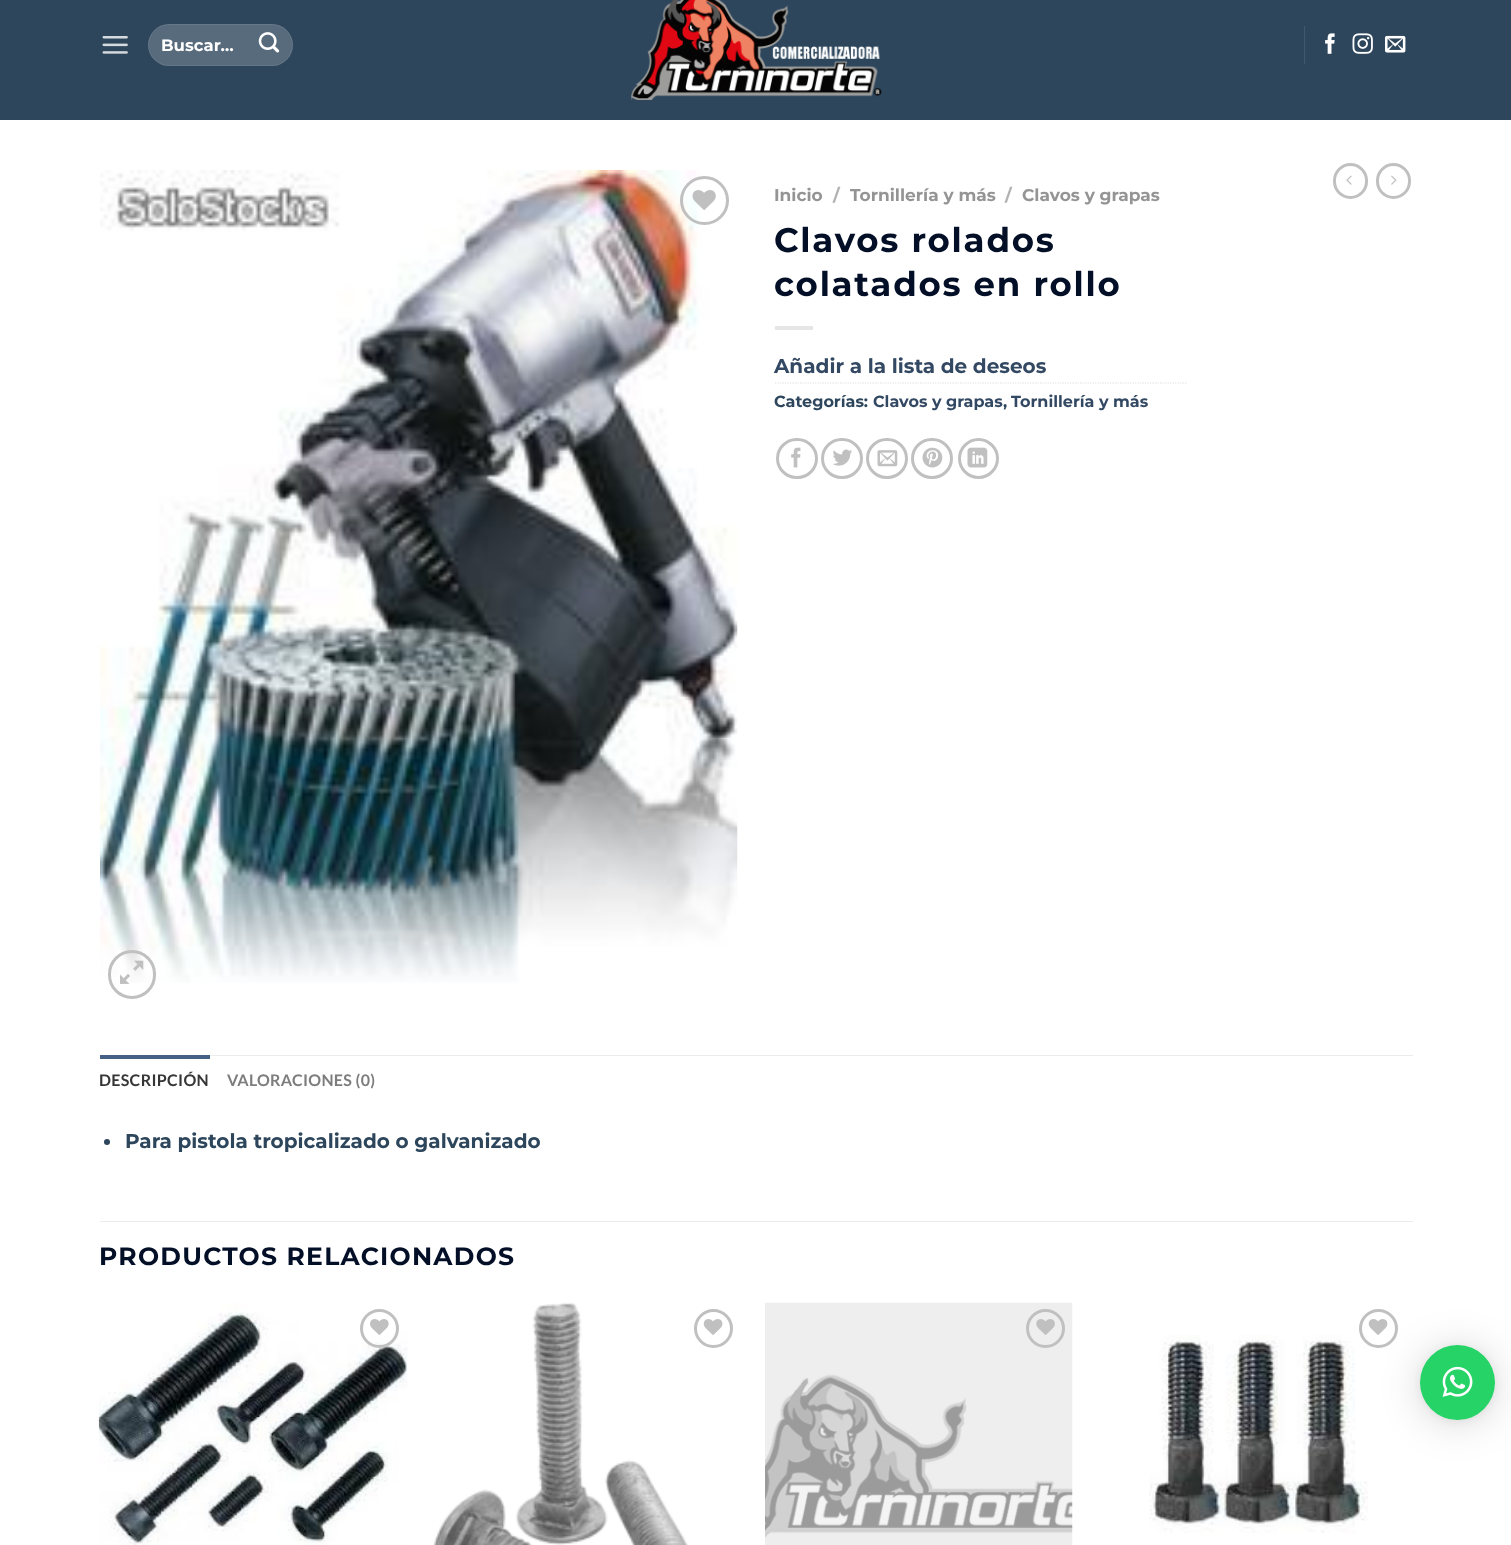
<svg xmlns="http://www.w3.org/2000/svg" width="1511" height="1545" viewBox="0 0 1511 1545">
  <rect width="100%" height="100%" fill="rgb(255,255,255)"/>
  <rect x="0" y="0" width="1511" height="120" fill="rgb(45,70,92)"/>
  <image x="102" y="36" width="26" height="18" href="pic1.png"/>
  <rect x="148" y="24" width="145" height="42" rx="21" fill="rgb(87,107,125)"/>
  <rect x="148.5" y="24.5" width="144" height="41" rx="20.5" fill="none" stroke="rgba(255,255,255,0.09)"/>
  <text x="161" y="51" font-family="Montserrat" font-size="16.5" font-weight="bold" fill="rgb(255,255,255)">Buscar…</text>
  <image x="258" y="32" width="22" height="21" href="pic2.png"/>
  <image x="631" y="0" width="251" height="100" href="pic3.png"/>
  <rect x="1304" y="26" width="1" height="38" fill="rgb(66,89,108)"/>
  <image x="1325" y="33" width="10" height="21" href="pic4.png"/>
  <image x="1352" y="33" width="21" height="21" href="pic5.png"/>
  <image x="1385" y="35" width="21" height="18" href="pic6.png"/>
  <image x="100" y="170" width="638" height="813" href="pic7.png"/>
  <circle cx="704.5" cy="200.5" r="23" fill="none" stroke="rgb(192,192,192)" stroke-width="3"/>
  <image x="692" y="190" width="24" height="20" href="pic8.png"/>
  <rect x="109.5" y="951.5" width="45" height="46" rx="22.5" fill="none" stroke="rgb(192,192,192)" stroke-width="3"/>
  <image x="120" y="960" width="24" height="24" href="pic9.png"/>
  <text x="774" y="201" font-family="Montserrat" font-size="17" font-weight="bold" fill="rgb(148,148,148)">Inicio</text>
  <text x="833" y="201" font-family="Montserrat" font-size="17" font-weight="bold" fill="rgb(178,178,178)">/</text>
  <text x="850" y="201" font-family="Montserrat" font-size="17" font-weight="bold" fill="rgb(148,148,148)">Tornillería y más</text>
  <text x="1005" y="201" font-family="Montserrat" font-size="17" font-weight="bold" fill="rgb(178,178,178)">/</text>
  <text x="1022" y="201" font-family="Montserrat" font-size="17" font-weight="bold" fill="rgb(148,148,148)">Clavos y grapas</text>
  <g font-family="Montserrat" font-size="34" font-weight="bold" letter-spacing="1.75" fill="rgb(3,15,39)">
    <text>
      <tspan x="774" y="252">Clavos rolados</tspan>
      <tspan x="774" y="296">colatados en rollo</tspan>
    </text>
  </g>
  <rect x="775" y="326" width="38" height="4" fill="rgb(230,230,230)"/>
  <text x="774" y="373" font-family="Montserrat" font-size="20" font-weight="bold" fill="rgb(51,72,98)">Añadir a la lista de deseos</text>
  <path d="M775 383H1187.5" fill="none" stroke="rgb(221,221,221)" stroke-width="1.2" stroke-dasharray="1.25 1.25"/>
  <text x="774" y="407" font-family="Montserrat" font-size="16" font-weight="bold" fill="rgb(45,70,92)">Categorías:</text>
  <text x="873" y="407" font-family="Montserrat" font-size="16" font-weight="bold" fill="rgb(51,72,98)">Clavos y grapas</text>
  <text x="1003" y="407" font-family="Montserrat" font-size="16" font-weight="bold" fill="rgb(45,70,92)">,</text>
  <text x="1011" y="407" font-family="Montserrat" font-size="16" font-weight="bold" fill="rgb(51,72,98)">Tornillería y más</text>
  <rect x="777.5" y="439.5" width="39" height="38" rx="19" fill="none" stroke="rgb(192,192,192)" stroke-width="3"/>
  <image x="791" y="447" width="10" height="21" href="pic10.png"/>
  <rect x="822.5" y="439.5" width="39" height="38" rx="19" fill="none" stroke="rgb(192,192,192)" stroke-width="3"/>
  <image x="833" y="449" width="19" height="17" href="pic11.png"/>
  <rect x="867.5" y="439.5" width="39" height="38" rx="19" fill="none" stroke="rgb(192,192,192)" stroke-width="3"/>
  <image x="877" y="450" width="21" height="17" href="pic12.png"/>
  <rect x="912.5" y="439.5" width="39" height="38" rx="19" fill="none" stroke="rgb(192,192,192)" stroke-width="3"/>
  <image x="922" y="447" width="21" height="21" href="pic13.png"/>
  <circle cx="978.5" cy="458.5" r="19" fill="none" stroke="rgb(192,192,192)" stroke-width="3"/>
  <image x="967" y="447" width="21" height="21" href="pic14.png"/>
  <rect x="1334.5" y="164.5" width="32" height="33" rx="16" fill="none" stroke="rgb(192,192,192)" stroke-width="3"/>
  <image x="1346" y="175" width="6" height="10" href="pic15.png"/>
  <rect x="1377.5" y="164.5" width="32" height="33" rx="16" fill="none" stroke="rgb(192,192,192)" stroke-width="3"/>
  <image x="1391" y="175" width="6" height="10" href="pic16.png"/>
  <rect x="210" y="1055" width="1203" height="1" fill="rgb(236,236,236)"/>
  <rect x="100" y="1055" width="110" height="4" fill="rgb(68,96,132)"/>
  <text x="99" y="1086" font-family="Lato" font-size="16" font-weight="bold" letter-spacing="0.3" fill="rgb(54,54,54)">DESCRIPCIÓN</text>
  <text x="227" y="1086" font-family="Lato" font-size="16" font-weight="bold" letter-spacing="0.3" fill="rgb(125,125,125)">VALORACIONES (0)</text>
  <circle cx="107" cy="1142" r="3" fill="rgb(45,70,92)"/>
  <text x="125" y="1148" font-family="Montserrat" font-size="20" font-weight="bold" fill="rgb(45,70,92)">Para pistola tropicalizado o galvanizado</text>
  <rect x="100" y="1221" width="1313" height="1" fill="rgb(236,236,236)"/>
  <text x="99" y="1265" font-family="Montserrat" font-size="25" font-weight="bold" letter-spacing="1.25" fill="rgb(3,15,39)">PRODUCTOS RELACIONADOS</text>
  <image x="98" y="1303" width="310" height="242" href="pic17.png"/>
  <circle cx="379.5" cy="1328.5" r="18" fill="none" stroke="rgb(192,192,192)" stroke-width="3"/>
  <image x="370" y="1319" width="19" height="16" href="pic18.png"/>
  <image x="433" y="1302" width="255" height="243" href="pic19.png"/>
  <circle cx="713.5" cy="1328.5" r="18" fill="none" stroke="rgb(192,192,192)" stroke-width="3"/>
  <image x="703" y="1319" width="20" height="16" href="pic20.png"/>
  <image x="765" y="1302" width="308" height="243" href="pic21.png"/>
  <circle cx="1045.5" cy="1328.5" r="18" fill="none" stroke="rgb(192,192,192)" stroke-width="3"/>
  <image x="1036" y="1319" width="19" height="16" href="pic22.png"/>
  <image x="1149" y="1335" width="219" height="198" href="pic23.png"/>
  <circle cx="1378.5" cy="1328.5" r="18" fill="none" stroke="rgb(192,192,192)" stroke-width="3"/>
  <image x="1368" y="1319" width="20" height="16" href="pic20.png"/>
  <rect x="1420" y="1348" width="75" height="75" rx="37.5" fill="rgba(0,0,0,0.16)" filter="blur(20px)"/>
  <rect x="1420" y="1346" width="75" height="75" rx="37.5" fill="rgba(0,0,0,0.06)" filter="blur(4px)"/>
  <circle cx="1457.5" cy="1382.5" r="37.5" fill="rgb(37,211,102)"/>
  <image x="1442" y="1366" width="31" height="31" href="pic24.png"/>
</svg>
